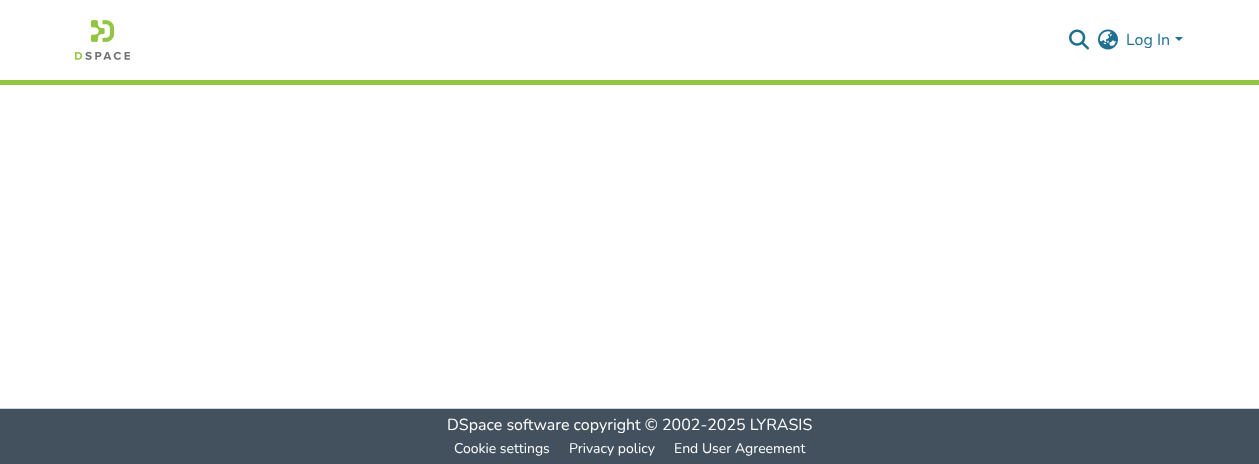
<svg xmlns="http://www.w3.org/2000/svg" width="1259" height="464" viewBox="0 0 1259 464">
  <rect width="100%" height="100%" fill="rgb(255,255,255)"/>
  <rect x="0" y="80" width="1259" height="5" fill="rgb(146,198,66)"/>
  <image x="75" y="20" width="55" height="40" href="pic1.png"/>
  <image x="1069" y="29" width="20" height="21" href="pic2.png"/>
  <image x="1098" y="29" width="20" height="21" href="pic3.png"/>
  <text x="1126" y="45" font-family="Nunito" font-size="16" fill="rgb(30,111,144)">Log In</text>
  <path d="M1175 37H1183L1179 41Z" fill="rgb(30,111,144)"/>
  <rect x="0" y="409" width="1259" height="55" fill="rgb(67,81,95)"/>
  <rect x="0" y="408" width="1259" height="1" fill="rgb(206,212,218)"/>
  <text x="447" y="430" font-family="Nunito" font-size="16" fill="rgb(255,255,255)">DSpace software copyright © 2002-2025 LYRASIS</text>
  <text x="454" y="453" font-family="Nunito" font-size="14" fill="rgb(255,255,255)">Cookie settings</text>
  <rect x="559" y="437" width="1" height="23" fill="rgb(73,80,87)"/>
  <text x="569" y="453" font-family="Nunito" font-size="14" fill="rgb(255,255,255)">Privacy policy</text>
  <rect x="664" y="437" width="1" height="23" fill="rgb(73,80,87)"/>
  <text x="674" y="453" font-family="Nunito" font-size="14" fill="rgb(255,255,255)">End User Agreement</text>
</svg>
